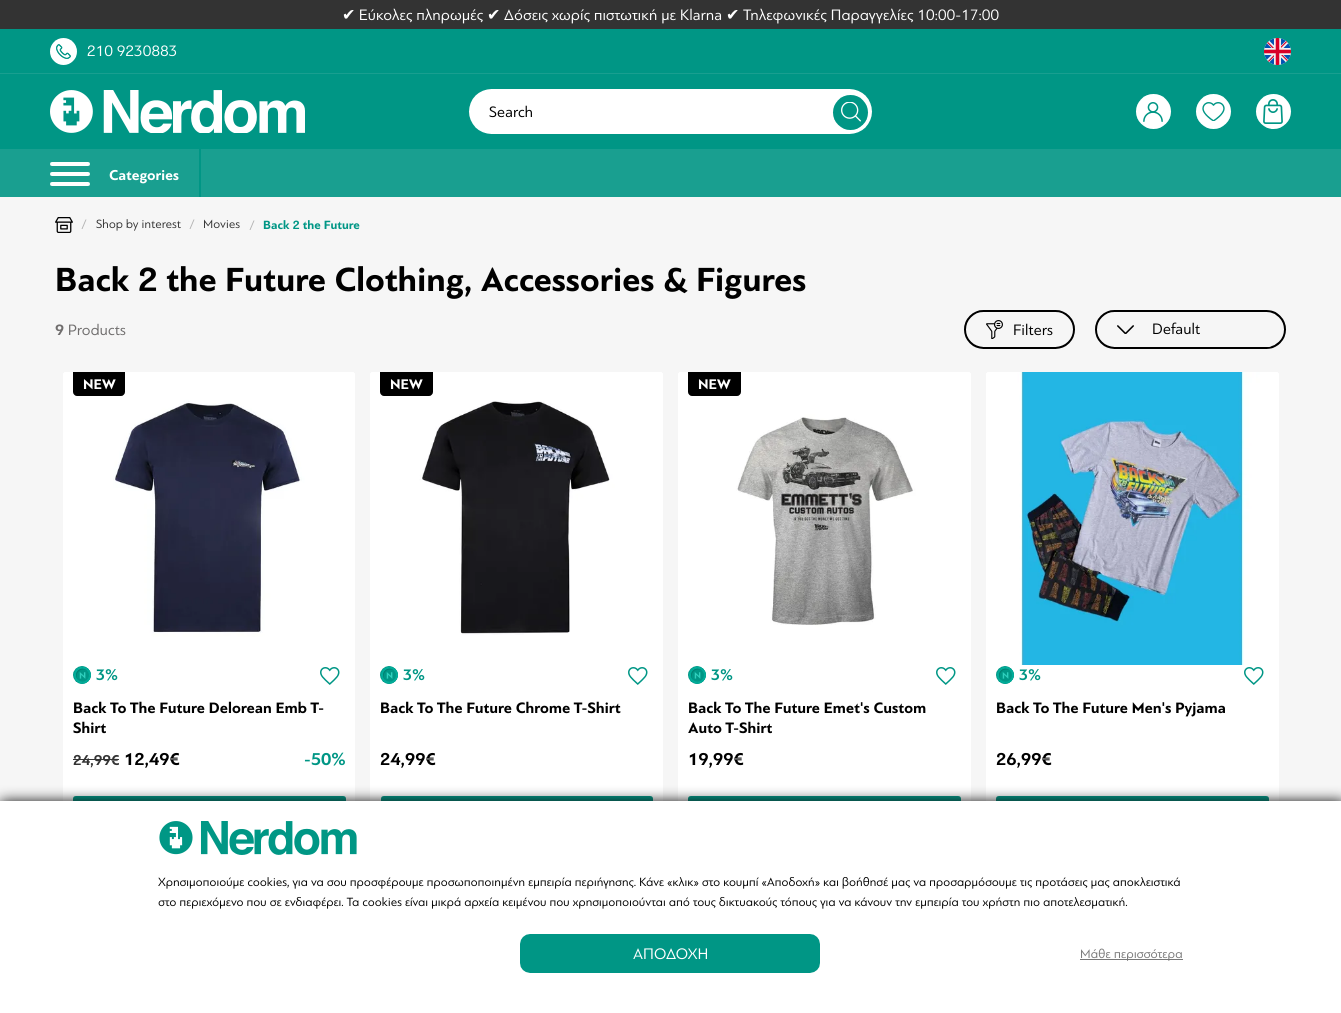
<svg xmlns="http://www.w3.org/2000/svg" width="1341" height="1013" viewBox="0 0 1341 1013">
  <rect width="100%" height="100%" fill="rgb(246,246,246)"/>
  <rect x="0" y="0" width="1341" height="29" fill="rgb(51,51,51)"/>
  <text x="342" y="20" font-family="DejaVu Sans" font-size="16" fill="rgb(255,255,255)">✔︎</text>
  <image x="360" y="8" width="123" height="16" href="pic1.png"/>
  <text x="487" y="20" font-family="DejaVu Sans" font-size="16" fill="rgb(255,255,255)">✔︎</text>
  <image x="504" y="8" width="218" height="16" href="pic2.png"/>
  <text x="726" y="20" font-family="DejaVu Sans" font-size="16" fill="rgb(255,255,255)">✔︎</text>
  <image x="743" y="8" width="256" height="16" href="pic3.png"/>
  <rect x="0" y="29" width="1341" height="44" fill="rgb(0,150,133)"/>
  <circle cx="63.5" cy="51.5" r="13.5" fill="rgb(255,255,255)"/>
  <image x="56" y="44" width="15" height="15" href="pic4.png"/>
  <image x="87" y="45" width="90" height="12" href="pic5.png"/>
  <image x="1264" y="38" width="27" height="27" href="pic6.png"/>
  <rect x="0" y="74" width="1341" height="75" fill="rgb(0,150,133)"/>
  <rect x="0" y="73" width="1341" height="1" fill="rgb(25,159,144)"/>
  <image x="50" y="90" width="255" height="43" href="pic7.png"/>
  <rect x="469" y="89" width="403" height="45" rx="22.5" fill="rgb(255,255,255)"/>
  <image x="489" y="105" width="43" height="13" href="pic8.png"/>
  <circle cx="850.5" cy="112.5" r="17.5" fill="rgb(0,150,133)"/>
  <image x="841" y="102" width="20" height="20" href="pic9.png"/>
  <circle cx="1153.5" cy="111.5" r="17.5" fill="rgb(255,255,255)"/>
  <image x="1143" y="102" width="20" height="20" href="pic10.png"/>
  <circle cx="1213.5" cy="111.5" r="17.5" fill="rgb(255,255,255)"/>
  <image x="1202" y="102" width="23" height="19" href="pic11.png"/>
  <circle cx="1273.5" cy="111.5" r="17.5" fill="rgb(255,255,255)"/>
  <image x="1263" y="99" width="20" height="25" href="pic12.png"/>
  <rect x="0" y="149" width="1341" height="48" fill="rgb(25,159,144)"/>
  <rect x="199" y="149" width="2" height="48" fill="rgb(0,150,133)"/>
  <rect x="50" y="162" width="40" height="4" rx="2" fill="rgb(255,255,255)"/>
  <rect x="50" y="172" width="40" height="4" rx="2" fill="rgb(255,255,255)"/>
  <rect x="50" y="182" width="40" height="4" rx="2" fill="rgb(255,255,255)"/>
  <image x="109" y="169" width="70" height="15" href="pic13.png"/>
  <image x="55" y="217" width="18" height="16" href="pic14.png"/>
  <path d="M82.5 229L86.5 219.5H85.5L81.5 229Z" fill="rgb(181,181,181)"/>
  <image x="96" y="219" width="85" height="12" href="pic15.png"/>
  <path d="M190.5 229L194.5 219.5H193.5L189.5 229Z" fill="rgb(181,181,181)"/>
  <image x="204" y="219" width="36" height="10" href="pic16.png"/>
  <path d="M250.5 230L254.5 220.5H253.5L249.5 230Z" fill="rgb(181,181,181)"/>
  <image x="263" y="220" width="97" height="10" href="pic17.png"/>
  <image x="57" y="266" width="749" height="33" href="pic18.png"/>
  <image x="55" y="324" width="9" height="11" href="pic19.png"/>
  <image x="69" y="323" width="57" height="13" href="pic20.png"/>
  <rect x="965" y="311" width="109" height="37" rx="18.5" fill="none" stroke="rgb(0,0,0)" stroke-width="2"/>
  <image x="986" y="320" width="17" height="19" href="pic21.png"/>
  <image x="1014" y="323" width="39" height="13" href="pic22.png"/>
  <image x="1117" y="325" width="17" height="9" href="pic23.png"/>
  <rect x="1096" y="311" width="189" height="37" rx="18.5" fill="none" stroke="rgb(0,0,0)" stroke-width="2"/>
  <image x="1153" y="322" width="47" height="13" href="pic24.png"/>
  <rect x="63" y="372" width="292" height="474" rx="3" fill="rgb(255,255,255)"/>
  <image x="63" y="372" width="292" height="293" href="pic25.png"/>
  <image x="73" y="666" width="18" height="18" href="pic26.png"/>
  <circle cx="82" cy="675" r="9" fill="rgb(0,150,133)"/>
  <image x="74" y="666" width="17" height="18" href="pic27.png"/>
  <image x="96" y="669" width="22" height="12" href="pic28.png"/>
  <image x="320" y="667" width="20" height="18" href="pic29.png"/>
  <image x="74" y="701" width="250" height="13" href="pic30.png"/>
  <image x="73" y="721" width="33" height="13" href="pic31.png"/>
  <image x="73" y="754" width="46" height="14" href="pic32.png"/>
  <rect x="73" y="759" width="46" height="1" fill="rgb(51,51,51)"/>
  <image x="125" y="752" width="55" height="16" href="pic33.png"/>
  <image x="304" y="752" width="41" height="14" href="pic34.png"/>
  <rect x="73" y="796" width="273" height="40" rx="3" fill="rgb(0,150,133)"/>
  <path d="M73 372H125V392C125 394 123 396 121 396H77C75 396 73 394 73 392Z" fill="rgb(0,0,0)"/>
  <image x="83" y="379" width="33" height="11" href="pic35.png"/>
  <rect x="370" y="372" width="293" height="474" rx="3" fill="rgb(255,255,255)"/>
  <image x="370" y="372" width="293" height="293" href="pic36.png"/>
  <image x="380" y="666" width="18" height="18" href="pic26.png"/>
  <circle cx="389" cy="675" r="9" fill="rgb(0,150,133)"/>
  <image x="381" y="666" width="17" height="18" href="pic27.png"/>
  <image x="403" y="669" width="22" height="12" href="pic28.png"/>
  <image x="628" y="667" width="20" height="18" href="pic29.png"/>
  <image x="381" y="701" width="240" height="13" href="pic37.png"/>
  <image x="380" y="752" width="56" height="16" href="pic38.png"/>
  <rect x="381" y="796" width="272" height="40" rx="3" fill="rgb(0,150,133)"/>
  <path d="M380 372H433V392C433 394 431 396 429 396H384C382 396 380 394 380 392Z" fill="rgb(0,0,0)"/>
  <image x="390" y="379" width="33" height="11" href="pic35.png"/>
  <rect x="678" y="372" width="293" height="474" rx="3" fill="rgb(255,255,255)"/>
  <image x="678" y="372" width="293" height="293" href="pic39.png"/>
  <image x="688" y="666" width="18" height="18" href="pic26.png"/>
  <circle cx="697" cy="675" r="9" fill="rgb(0,150,133)"/>
  <image x="689" y="666" width="17" height="18" href="pic27.png"/>
  <image x="711" y="669" width="22" height="12" href="pic28.png"/>
  <image x="936" y="667" width="20" height="18" href="pic29.png"/>
  <image x="689" y="701" width="237" height="13" href="pic40.png"/>
  <image x="688" y="721" width="84" height="13" href="pic41.png"/>
  <image x="689" y="752" width="55" height="16" href="pic42.png"/>
  <rect x="688" y="796" width="273" height="40" rx="3" fill="rgb(0,150,133)"/>
  <path d="M688 372H741V392C741 394 739 396 737 396H692C690 396 688 394 688 392Z" fill="rgb(0,0,0)"/>
  <image x="698" y="379" width="33" height="11" href="pic35.png"/>
  <rect x="986" y="372" width="293" height="474" rx="3" fill="rgb(255,255,255)"/>
  <image x="986" y="372" width="293" height="293" href="pic43.png"/>
  <image x="996" y="666" width="18" height="18" href="pic26.png"/>
  <circle cx="1005" cy="675" r="9" fill="rgb(0,150,133)"/>
  <image x="997" y="666" width="17" height="18" href="pic27.png"/>
  <image x="1019" y="669" width="22" height="12" href="pic28.png"/>
  <image x="1244" y="667" width="20" height="18" href="pic29.png"/>
  <image x="997" y="701" width="228" height="16" href="pic44.png"/>
  <image x="996" y="752" width="56" height="16" href="pic45.png"/>
  <rect x="996" y="796" width="273" height="40" rx="3" fill="rgb(0,150,133)"/>
  <rect x="0" y="801" width="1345" height="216" fill="rgb(18,18,18)" filter="blur(7px)"/>
  <rect x="0" y="801" width="1341" height="212" fill="rgb(255,255,255)"/>
  <image x="159" y="821" width="198" height="34" href="pic46.png"/>
  <image x="158" y="877" width="1022" height="12" href="pic47.png"/>
  <image x="158" y="896" width="970" height="13" href="pic48.png"/>
  <rect x="520" y="934" width="300" height="39" rx="10" fill="rgb(0,150,133)"/>
  <image x="633" y="948" width="74" height="12" href="pic49.png"/>
  <rect x="1080" y="959" width="103" height="1" fill="rgb(120,120,120)"/>
  <image x="1081" y="948" width="101" height="13" href="pic50.png"/>
</svg>
